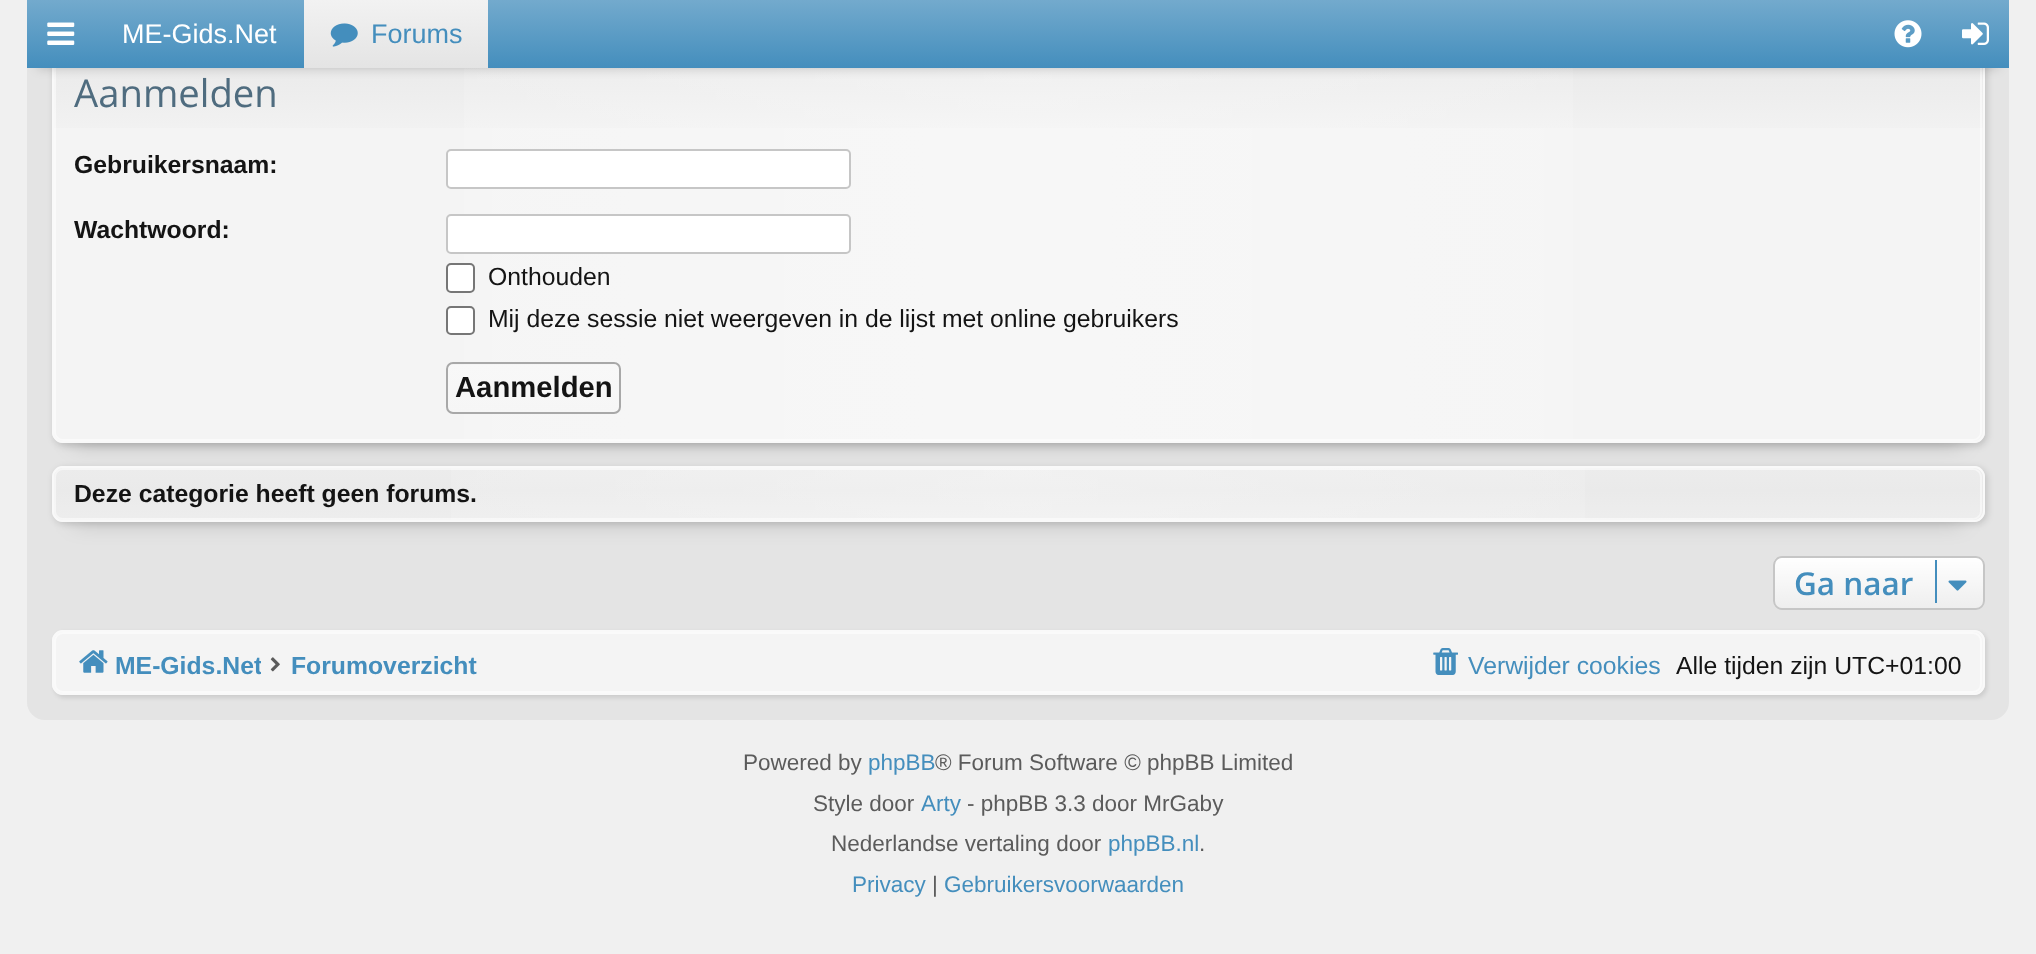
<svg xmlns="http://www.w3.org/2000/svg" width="2036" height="954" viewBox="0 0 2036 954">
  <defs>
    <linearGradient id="g1" gradientUnits="userSpaceOnUse" x1="1018" y1="38" x2="1018" y2="441"><stop offset="0" stop-color="rgb(204,204,204)" stop-opacity="0.2"/><stop offset="0.06" stop-color="rgb(204,204,204)" stop-opacity="0.25"/><stop offset="0.28" stop-color="rgb(204,204,204)" stop-opacity="0"/></linearGradient>
    <linearGradient id="g2" gradientUnits="userSpaceOnUse" x1="54" y1="240" x2="1982" y2="240"><stop offset="0" stop-color="rgb(255,255,255)" stop-opacity="0"/><stop offset="0.5" stop-color="rgb(255,255,255)" stop-opacity="0.3"/><stop offset="1" stop-color="rgb(255,255,255)" stop-opacity="0"/></linearGradient>
    <linearGradient id="g3" gradientUnits="userSpaceOnUse" x1="1018" y1="0" x2="1018" y2="68"><stop offset="0" stop-color="rgb(115,170,205)"/><stop offset="1" stop-color="rgb(68,142,189)"/></linearGradient>
    <linearGradient id="g4" gradientUnits="userSpaceOnUse" x1="396" y1="0" x2="396" y2="68"><stop offset="0" stop-color="rgb(242,242,242)"/><stop offset="1" stop-color="rgb(228,228,228)"/></linearGradient>
    <clipPath id="clip1"><rect x="446" y="362" width="175" height="52" rx="7"/></clipPath>
    <linearGradient id="g5" gradientUnits="userSpaceOnUse" x1="533" y1="365" x2="533" y2="412"><stop offset="0" stop-color="rgb(248,248,248)"/><stop offset="1" stop-color="rgb(246,246,246)"/></linearGradient>
    <clipPath id="clip2"><rect x="52" y="466" width="1933" height="56" rx="11"/></clipPath>
    <linearGradient id="g6" gradientUnits="userSpaceOnUse" x1="1018" y1="468" x2="1018" y2="580"><stop offset="0" stop-color="rgb(204,204,204)" stop-opacity="0.2"/><stop offset="0.2" stop-color="rgb(204,204,204)" stop-opacity="0.25"/><stop offset="1" stop-color="rgb(204,204,204)" stop-opacity="0"/></linearGradient>
    <linearGradient id="g7" gradientUnits="userSpaceOnUse" x1="54" y1="494" x2="1982" y2="494"><stop offset="0" stop-color="rgb(255,255,255)" stop-opacity="0"/><stop offset="0.5" stop-color="rgb(255,255,255)" stop-opacity="0.3"/><stop offset="1" stop-color="rgb(255,255,255)" stop-opacity="0"/></linearGradient>
    <clipPath id="clip3"><rect x="1773" y="556" width="212" height="54" rx="9"/></clipPath>
    <linearGradient id="g8" gradientUnits="userSpaceOnUse" x1="1879" y1="558" x2="1879" y2="608"><stop offset="0" stop-color="rgb(255,255,255)"/><stop offset="1" stop-color="rgb(255,255,255)" stop-opacity="0"/></linearGradient>
    <clipPath id="clip4"><rect x="74" y="639" width="187" height="50"/></clipPath>
  </defs>
  <rect width="100%" height="100%" fill="rgb(240,240,240)"/>
  <rect x="28" y="-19" width="1980" height="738" rx="17" fill="rgb(228,228,228)" stroke="rgb(228,228,228)" stroke-width="2"/>
  <rect x="74" y="81" width="1888" height="362" fill="rgba(0,0,0,0.2)" filter="blur(11px)"/>
  <rect x="54" y="38" width="1933" height="408" rx="11" fill="rgba(0,0,0,0.15)" filter="blur(3.5px)"/>
  <rect x="52" y="36" width="1933" height="407" rx="11" fill="rgb(244,244,244)"/>
  <rect x="54" y="68" width="1929" height="60" fill="url(#g1)"/>
  <rect x="464" y="68" width="1109" height="373" fill="url(#g2)"/>
  <rect x="55" y="39" width="1926" height="401" rx="8" fill="none" stroke="rgba(255,255,255,0.5)" stroke-width="2"/>
  <rect x="53" y="37" width="1931" height="405" rx="10" fill="none" stroke="rgb(249,249,249)" stroke-width="2"/>
  <rect x="38" y="23" width="1960" height="45" fill="rgba(0,0,0,0.2)" filter="blur(5.5px)"/>
  <rect x="27" y="0" width="1982" height="68" fill="url(#g3)"/>
  <image x="47" y="22" width="28" height="23" href="pic1.png"/>
  <text x="122" y="43" font-family="Liberation Sans" font-size="27" fill="rgb(255,255,255)">ME-Gids.Net</text>
  <rect x="304" y="0" width="184" height="68" fill="url(#g4)"/>
  <image x="330" y="23" width="28" height="24" href="pic2.png"/>
  <text x="371" y="43" font-family="Liberation Sans" font-size="27" fill="rgb(68,142,189)">Forums</text>
  <image x="1894" y="20" width="28" height="28" href="pic3.png"/>
  <image x="1962" y="22" width="27" height="23" href="pic4.png"/>
  <text x="74" y="107" font-family="Open Sans" font-size="38.25" fill="rgb(79,108,127)">Aanmelden</text>
  <text x="74" y="173" font-family="Liberation Sans" font-size="24.75" font-weight="bold" fill="rgb(20,20,20)">Gebruikersnaam:</text>
  <rect x="447" y="150" width="403" height="38" rx="4" fill="rgb(255,255,255)" stroke="rgb(198,198,198)" stroke-width="2"/>
  <text x="74" y="238" font-family="Liberation Sans" font-size="24.75" font-weight="bold" fill="rgb(20,20,20)">Wachtwoord:</text>
  <rect x="447" y="215" width="403" height="38" rx="4" fill="rgb(255,255,255)" stroke="rgb(198,198,198)" stroke-width="2"/>
  <rect x="447" y="264" width="27" height="28" rx="4" fill="rgb(255,255,255)" stroke="rgb(118,118,118)" stroke-width="2"/>
  <text x="488" y="285" font-family="Liberation Sans" font-size="24.75" fill="rgb(20,20,20)">Onthouden</text>
  <rect x="447" y="307" width="27" height="27" rx="4" fill="rgb(255,255,255)" stroke="rgb(118,118,118)" stroke-width="2"/>
  <text x="488" y="327" font-family="Liberation Sans" font-size="24.75" fill="rgb(20,20,20)">Mij deze sessie niet weergeven in de lijst met online gebruikers</text>
  <g clip-path="url(#clip1)">
    <rect x="446" y="365" width="175" height="47" fill="url(#g5)"/>
  </g>
  <rect x="447" y="363" width="173" height="50" rx="6" fill="none" stroke="rgb(168,168,168)" stroke-width="2"/>
  <text x="455" y="397" font-family="Liberation Sans" font-size="29.25" font-weight="bold" fill="rgb(20,20,20)">Aanmelden</text>
  <rect x="74" y="511" width="1888" height="11" fill="rgba(0,0,0,0.2)" filter="blur(11px)"/>
  <rect x="54" y="468" width="1933" height="56" rx="11" fill="rgba(0,0,0,0.15)" filter="blur(3.5px)"/>
  <rect x="52" y="466" width="1933" height="56" rx="11" fill="rgb(244,244,244)"/>
  <g clip-path="url(#clip2)">
    <rect x="52" y="468" width="1933" height="52" fill="url(#g6)"/>
  </g>
  <rect x="451" y="468" width="1134" height="52" fill="url(#g7)"/>
  <rect x="55" y="469" width="1926" height="50" rx="8" fill="none" stroke="rgba(255,255,255,0.5)" stroke-width="2"/>
  <rect x="53" y="467" width="1931" height="54" rx="10" fill="none" stroke="rgb(249,249,249)" stroke-width="2"/>
  <text x="74" y="502" font-family="Liberation Sans" font-size="24.75" font-weight="bold" fill="rgb(20,20,20)">Deze categorie heeft geen forums.</text>
  <rect x="1773" y="556" width="212" height="54" rx="9" fill="rgb(238,238,238)"/>
  <g clip-path="url(#clip3)">
    <rect x="1773" y="558" width="212" height="49" fill="url(#g8)"/>
  </g>
  <rect x="1774" y="557" width="210" height="52" rx="8" fill="none" stroke="rgb(198,198,198)" stroke-width="2"/>
  <text x="1794" y="595" font-family="Open Sans" font-size="31.5" font-weight="600" fill="rgb(68,142,189)">Ga naar</text>
  <rect x="1935" y="560" width="2" height="43" fill="rgb(68,142,189)"/>
  <image x="1948" y="580" width="19" height="11" href="pic5.png"/>
  <rect x="54" y="632" width="1933" height="66" rx="11" fill="rgba(0,0,0,0.1)" filter="blur(2px)"/>
  <rect x="52" y="630" width="1933" height="65" rx="11" fill="rgb(244,244,244)"/>
  <rect x="55" y="633" width="1926" height="59" rx="8" fill="none" stroke="rgb(250,250,250)" stroke-width="2"/>
  <rect x="53" y="631" width="1931" height="63" rx="10" fill="none" stroke="rgb(249,249,249)" stroke-width="2"/>
  <image x="79" y="650" width="29" height="23" href="pic6.png"/>
  <g clip-path="url(#clip4)">
    <text x="115" y="674" font-family="Liberation Sans" font-size="24.75" font-weight="bold" fill="rgb(68,142,189)">ME-Gids.Net</text>
  </g>
  <image x="270" y="657" width="10" height="15" href="pic7.png"/>
  <text x="291" y="674" font-family="Liberation Sans" font-size="24.75" font-weight="bold" fill="rgb(68,142,189)">Forumoverzicht</text>
  <image x="1433" y="648" width="25" height="27" href="pic8.png"/>
  <text x="1468" y="674" font-family="Liberation Sans" font-size="24.75" fill="rgb(68,142,189)">Verwijder cookies</text>
  <text x="1676" y="674" font-family="Liberation Sans" font-size="24.75" fill="rgb(20,20,20)">Alle tijden zijn UTC+01:00</text>
  <text x="743" y="770" font-family="Liberation Sans" font-size="22.5" fill="rgb(91,91,91)">Powered by</text>
  <text x="868" y="770" font-family="Liberation Sans" font-size="22.5" fill="rgb(68,142,189)">phpBB</text>
  <g font-family="Liberation Sans" font-size="22.5" fill="rgb(91,91,91)">
    <text x="935" y="770">® Forum Software © phpBB Limited</text>
    <text x="813" y="811">Style door</text>
  </g>
  <text x="921" y="811" font-family="Liberation Sans" font-size="22.5" fill="rgb(68,142,189)">Arty</text>
  <g font-family="Liberation Sans" font-size="22.5" fill="rgb(91,91,91)">
    <text x="967" y="811">- phpBB 3.3 door MrGaby</text>
    <text x="831" y="851">Nederlandse vertaling door</text>
  </g>
  <text x="1108" y="851" font-family="Liberation Sans" font-size="22.5" fill="rgb(68,142,189)">phpBB.nl</text>
  <text x="1199" y="851" font-family="Liberation Sans" font-size="22.5" fill="rgb(91,91,91)">.</text>
  <text x="852" y="892" font-family="Liberation Sans" font-size="22.5" fill="rgb(68,142,189)">Privacy</text>
  <text x="932" y="892" font-family="Liberation Sans" font-size="22.5" fill="rgb(91,91,91)">|</text>
  <text x="944" y="892" font-family="Liberation Sans" font-size="22.5" fill="rgb(68,142,189)">Gebruikersvoorwaarden</text>
</svg>
